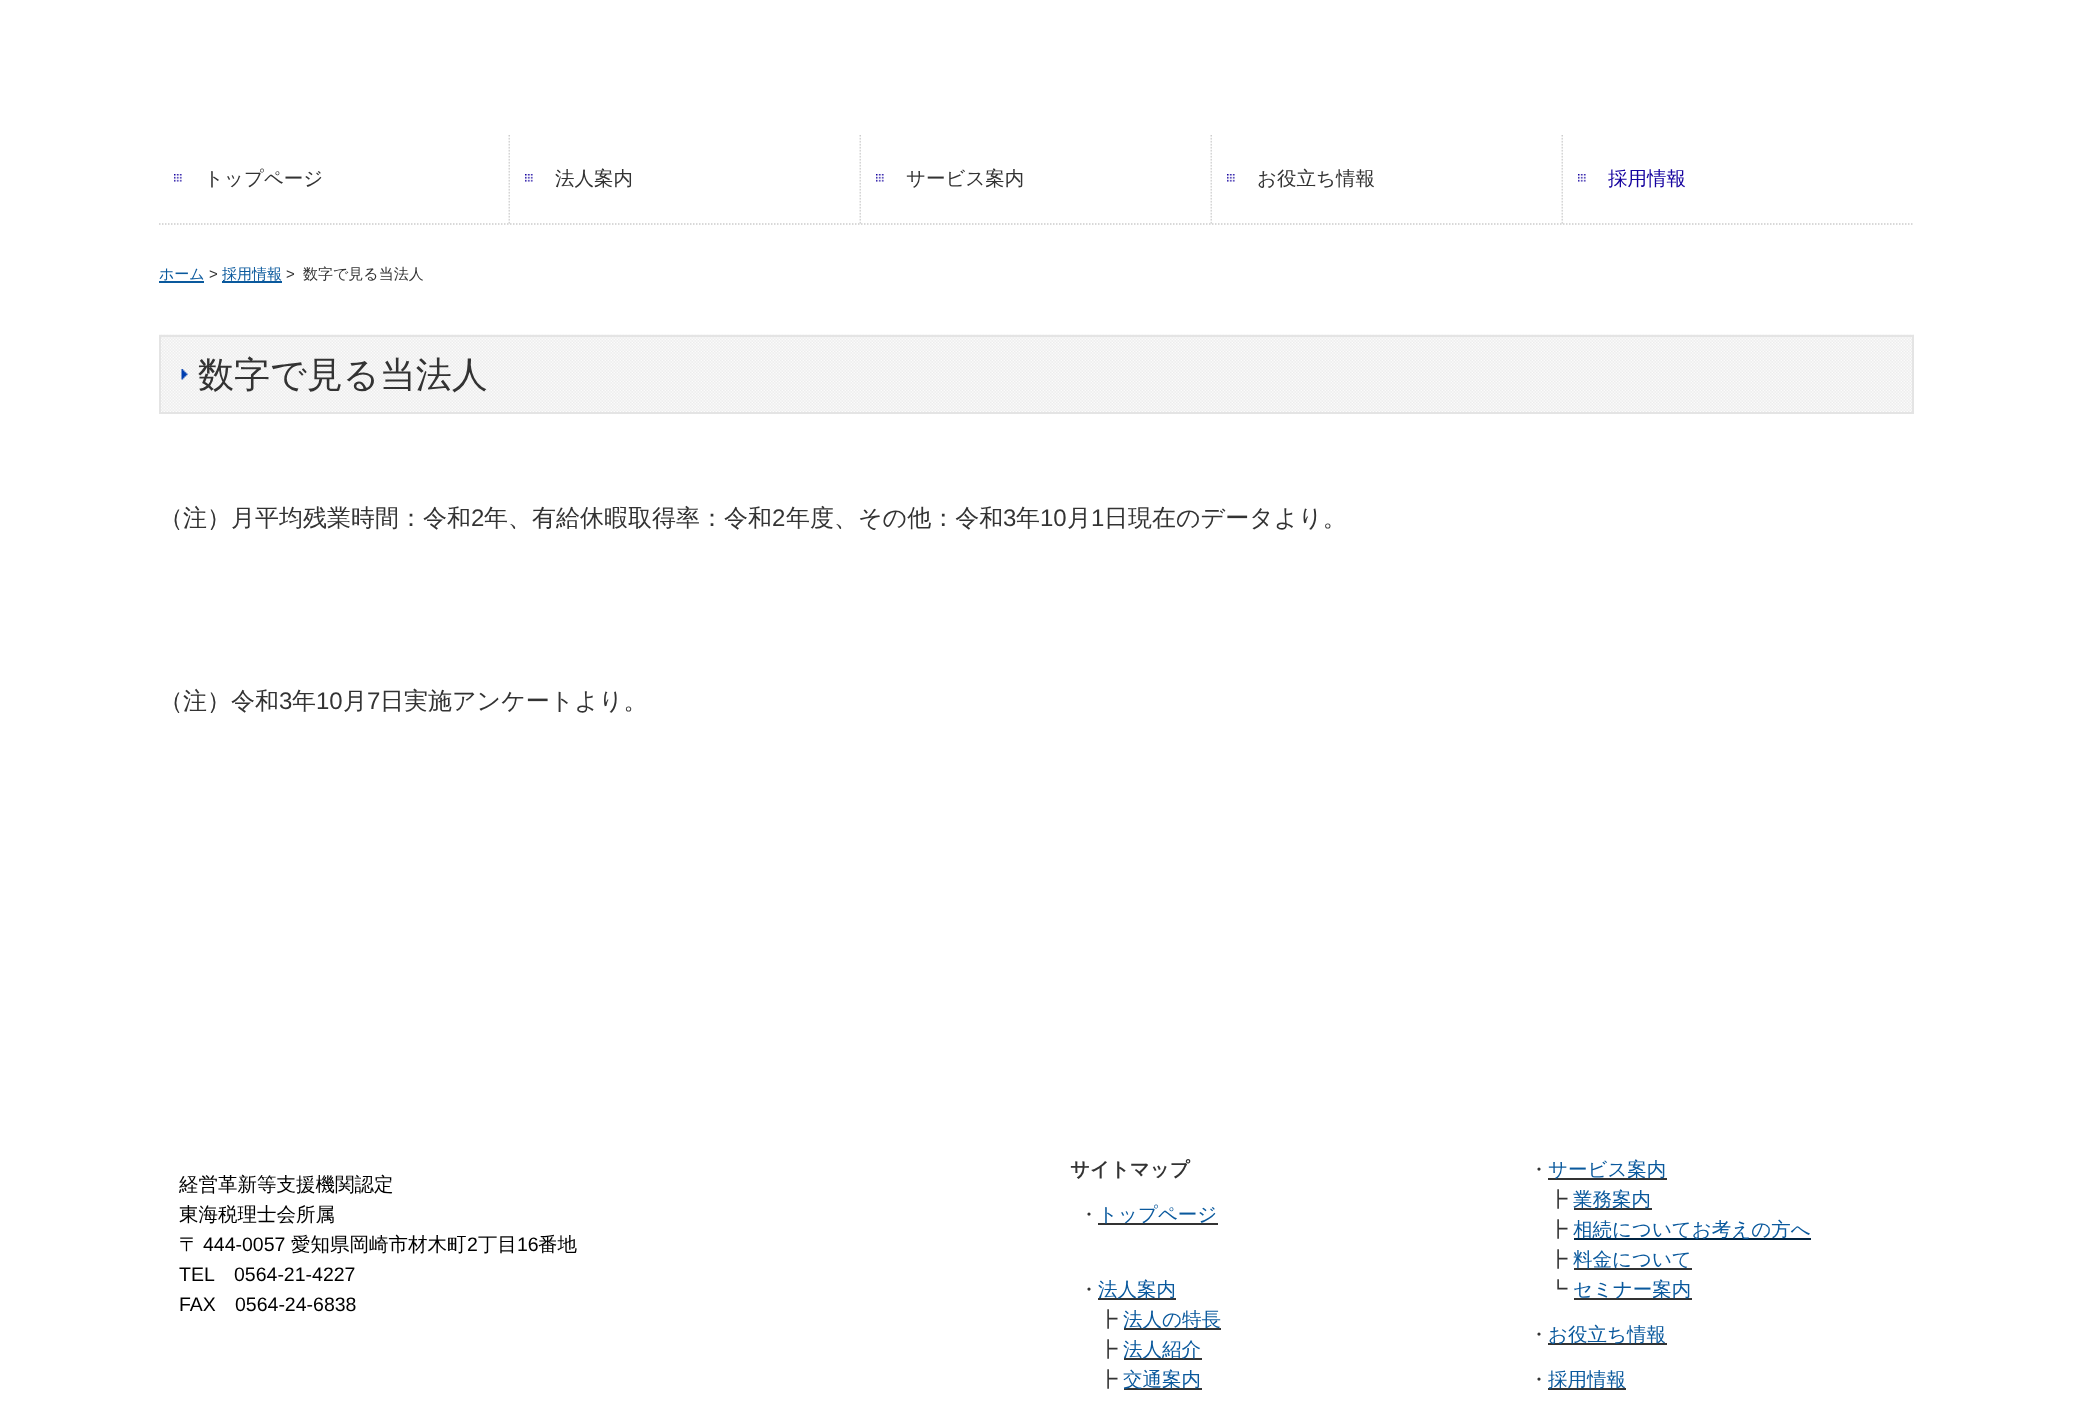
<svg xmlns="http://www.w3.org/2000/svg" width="2073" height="1401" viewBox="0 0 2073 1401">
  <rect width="100%" height="100%" fill="rgb(255,255,255)"/>
  <image x="508" y="135" width="2" height="89" href="pic1.png"/>
  <image x="174" y="174" width="8" height="8" href="pic2.png"/>
  <path d="M159 224H510" fill="none" stroke="rgb(204,204,204)" stroke-width="1.5" stroke-dasharray="1.5 1.5"/>
  <text x="204" y="185" font-family="WenQuanYi Zen Hei" font-size="19.5" font-weight="500" fill="rgb(51,51,51)">トップページ</text>
  <image x="859" y="135" width="2" height="89" href="pic1.png"/>
  <image x="525" y="174" width="8" height="8" href="pic3.png"/>
  <path d="M510 224H861" fill="none" stroke="rgb(204,204,204)" stroke-width="1.5" stroke-dasharray="1.5 1.5"/>
  <text x="555" y="185" font-family="WenQuanYi Zen Hei" font-size="19.5" font-weight="500" fill="rgb(51,51,51)">法人案内</text>
  <image x="1210" y="135" width="2" height="89" href="pic1.png"/>
  <image x="876" y="174" width="8" height="8" href="pic2.png"/>
  <path d="M861 224H1212" fill="none" stroke="rgb(204,204,204)" stroke-width="1.5" stroke-dasharray="1.5 1.5"/>
  <text x="906" y="185" font-family="WenQuanYi Zen Hei" font-size="19.5" font-weight="500" fill="rgb(51,51,51)">サービス案内</text>
  <image x="1561" y="135" width="2" height="89" href="pic1.png"/>
  <image x="1227" y="174" width="8" height="8" href="pic3.png"/>
  <path d="M1212 224H1563" fill="none" stroke="rgb(204,204,204)" stroke-width="1.5" stroke-dasharray="1.5 1.5"/>
  <text x="1257" y="185" font-family="WenQuanYi Zen Hei" font-size="19.5" font-weight="500" fill="rgb(51,51,51)">お役立ち情報</text>
  <image x="1578" y="174" width="8" height="8" href="pic2.png"/>
  <path d="M1563 224H1914" fill="none" stroke="rgb(204,204,204)" stroke-width="1.5" stroke-dasharray="1.5 1.5"/>
  <text x="1608" y="185" font-family="WenQuanYi Zen Hei" font-size="19.5" font-weight="500" fill="rgb(21,2,159)">採用情報</text>
  <text x="159" y="279" font-family="WenQuanYi Zen Hei" font-size="15" font-weight="500" fill="rgb(10,89,157)">ホーム</text>
  <rect x="159" y="281" width="45" height="2" fill="rgb(10,89,157)"/>
  <text x="209" y="279" font-family="Liberation Sans" font-size="15" fill="rgb(51,51,51)">&gt;</text>
  <rect x="222" y="281" width="60" height="2" fill="rgb(10,89,157)"/>
  <text x="222" y="279" font-family="WenQuanYi Zen Hei" font-size="15" font-weight="500" fill="rgb(10,89,157)">採用情報</text>
  <text x="286" y="279" font-family="Liberation Sans" font-size="15" fill="rgb(51,51,51)">&gt;</text>
  <text x="303" y="279" font-family="WenQuanYi Zen Hei" font-size="15" font-weight="500" fill="rgb(51,51,51)">数字で見る当法人</text>
  <image x="159" y="334" width="1755" height="78" href="pic4.png"/>
  <rect x="160" y="336" width="1753" height="77" fill="none" stroke="rgb(228,228,228)" stroke-width="2"/>
  <image x="181" y="369" width="7" height="11" href="pic5.png"/>
  <text x="198" y="387" font-family="WenQuanYi Zen Hei" font-size="36" font-weight="500" fill="rgb(51,51,51)">数字で見る当法人</text>
  <text x="159" y="526" font-family="WenQuanYi Zen Hei" font-size="24" font-weight="500" fill="rgb(51,51,51)">（注）月平均残業時間：令和</text>
  <text x="471" y="526" font-family="Liberation Sans" font-size="24" fill="rgb(51,51,51)">2</text>
  <text x="484" y="526" font-family="WenQuanYi Zen Hei" font-size="24" font-weight="500" fill="rgb(51,51,51)">年、有給休暇取得率：令和</text>
  <text x="772" y="526" font-family="Liberation Sans" font-size="24" fill="rgb(51,51,51)">2</text>
  <text x="786" y="526" font-family="WenQuanYi Zen Hei" font-size="24" font-weight="500" fill="rgb(51,51,51)">年度、その他：令和</text>
  <text x="1003" y="526" font-family="Liberation Sans" font-size="24" fill="rgb(51,51,51)">3</text>
  <text x="1016" y="526" font-family="WenQuanYi Zen Hei" font-size="24" font-weight="500" fill="rgb(51,51,51)">年</text>
  <text x="1040" y="526" font-family="Liberation Sans" font-size="24" fill="rgb(51,51,51)">10</text>
  <text x="1067" y="526" font-family="WenQuanYi Zen Hei" font-size="24" font-weight="500" fill="rgb(51,51,51)">月</text>
  <text x="1091" y="526" font-family="Liberation Sans" font-size="24" fill="rgb(51,51,51)">1</text>
  <g font-family="WenQuanYi Zen Hei" font-size="24" font-weight="500" fill="rgb(51,51,51)">
    <text x="1104" y="526">日現在のデータより。</text>
    <text x="159" y="709">（注）令和</text>
  </g>
  <text x="279" y="709" font-family="Liberation Sans" font-size="24" fill="rgb(51,51,51)">3</text>
  <text x="292" y="709" font-family="WenQuanYi Zen Hei" font-size="24" font-weight="500" fill="rgb(51,51,51)">年</text>
  <text x="316" y="709" font-family="Liberation Sans" font-size="24" fill="rgb(51,51,51)">10</text>
  <text x="343" y="709" font-family="WenQuanYi Zen Hei" font-size="24" font-weight="500" fill="rgb(51,51,51)">月</text>
  <text x="367" y="709" font-family="Liberation Sans" font-size="24" fill="rgb(51,51,51)">7</text>
  <text x="380" y="709" font-family="WenQuanYi Zen Hei" font-size="24" font-weight="500" fill="rgb(51,51,51)">日実施アンケートより。</text>
  <g font-family="WenQuanYi Zen Hei" font-size="19.5" font-weight="500" fill="rgb(0,0,0)">
    <text>
      <tspan x="179" y="1191">経営革新等支援機関認定</tspan>
      <tspan x="179" y="1221">東海税理士会所属</tspan>
      <tspan x="179" y="1251">〒</tspan>
    </text>
  </g>
  <text x="203" y="1251" font-family="Liberation Sans" font-size="19.5" fill="rgb(0,0,0)">444-0057</text>
  <text x="291" y="1251" font-family="WenQuanYi Zen Hei" font-size="19.5" font-weight="500" fill="rgb(0,0,0)">愛知県岡崎市材木町</text>
  <text x="467" y="1251" font-family="Liberation Sans" font-size="19.5" fill="rgb(0,0,0)">2</text>
  <text x="478" y="1251" font-family="WenQuanYi Zen Hei" font-size="19.5" font-weight="500" fill="rgb(0,0,0)">丁目</text>
  <text x="517" y="1251" font-family="Liberation Sans" font-size="19.5" fill="rgb(0,0,0)">16</text>
  <text x="538" y="1251" font-family="WenQuanYi Zen Hei" font-size="19.5" font-weight="500" fill="rgb(0,0,0)">番地</text>
  <g font-family="Liberation Sans" font-size="19.5" fill="rgb(0,0,0)">
    <text x="179" y="1281">TEL</text>
    <text x="234" y="1281">0564-21-4227</text>
    <text x="179" y="1311">FAX</text>
    <text x="235" y="1311">0564-24-6838</text>
  </g>
  <text x="1070" y="1176" font-family="WenQuanYi Zen Hei" font-size="19.5" font-weight="bold" fill="rgb(51,51,51)">サイトマップ</text>
  <text x="1079" y="1221" font-family="WenQuanYi Zen Hei" font-size="19.5" font-weight="500" fill="rgb(51,51,51)">・</text>
  <rect x="1098" y="1223" width="120" height="2" fill="rgb(51,51,51)"/>
  <text x="1098" y="1221" font-family="WenQuanYi Zen Hei" font-size="19.5" font-weight="500" fill="rgb(10,89,157)">トップページ</text>
  <text x="1079" y="1296" font-family="WenQuanYi Zen Hei" font-size="19.5" font-weight="500" fill="rgb(51,51,51)">・</text>
  <rect x="1098" y="1298" width="78" height="2" fill="rgb(51,51,51)"/>
  <text x="1098" y="1296" font-family="WenQuanYi Zen Hei" font-size="19.5" font-weight="500" fill="rgb(10,89,157)">法人案内</text>
  <text x="1098" y="1326" font-family="WenQuanYi Zen Hei" font-size="19.5" font-weight="500" fill="rgb(51,51,51)">┣</text>
  <rect x="1124" y="1328" width="97" height="2" fill="rgb(51,51,51)"/>
  <text x="1123" y="1326" font-family="WenQuanYi Zen Hei" font-size="19.5" font-weight="500" fill="rgb(10,89,157)">法人の特長</text>
  <text x="1098" y="1356" font-family="WenQuanYi Zen Hei" font-size="19.5" font-weight="500" fill="rgb(51,51,51)">┣</text>
  <rect x="1124" y="1358" width="78" height="2" fill="rgb(51,51,51)"/>
  <text x="1123" y="1356" font-family="WenQuanYi Zen Hei" font-size="19.5" font-weight="500" fill="rgb(10,89,157)">法人紹介</text>
  <text x="1098" y="1386" font-family="WenQuanYi Zen Hei" font-size="19.5" font-weight="500" fill="rgb(51,51,51)">┣</text>
  <rect x="1124" y="1388" width="78" height="2" fill="rgb(51,51,51)"/>
  <text x="1123" y="1386" font-family="WenQuanYi Zen Hei" font-size="19.5" font-weight="500" fill="rgb(10,89,157)">交通案内</text>
  <text x="1529" y="1176" font-family="WenQuanYi Zen Hei" font-size="19.5" font-weight="500" fill="rgb(51,51,51)">・</text>
  <rect x="1548" y="1178" width="119" height="2" fill="rgb(51,51,51)"/>
  <text x="1548" y="1176" font-family="WenQuanYi Zen Hei" font-size="19.5" font-weight="500" fill="rgb(10,89,157)">サービス案内</text>
  <text x="1548" y="1206" font-family="WenQuanYi Zen Hei" font-size="19.5" font-weight="500" fill="rgb(51,51,51)">┣</text>
  <rect x="1574" y="1208" width="78" height="2" fill="rgb(51,51,51)"/>
  <text x="1573" y="1206" font-family="WenQuanYi Zen Hei" font-size="19.5" font-weight="500" fill="rgb(10,89,157)">業務案内</text>
  <text x="1548" y="1236" font-family="WenQuanYi Zen Hei" font-size="19.5" font-weight="500" fill="rgb(51,51,51)">┣</text>
  <rect x="1574" y="1238" width="237" height="2" fill="rgb(1,35,64)"/>
  <text x="1573" y="1236" font-family="WenQuanYi Zen Hei" font-size="19.5" font-weight="500" fill="rgb(10,89,157)">相続についてお考えの方へ</text>
  <text x="1548" y="1266" font-family="WenQuanYi Zen Hei" font-size="19.5" font-weight="500" fill="rgb(51,51,51)">┣</text>
  <rect x="1574" y="1268" width="118" height="2" fill="rgb(51,51,51)"/>
  <text x="1573" y="1266" font-family="WenQuanYi Zen Hei" font-size="19.5" font-weight="500" fill="rgb(10,89,157)">料金について</text>
  <text x="1548" y="1296" font-family="WenQuanYi Zen Hei" font-size="19.5" font-weight="500" fill="rgb(51,51,51)">┗</text>
  <rect x="1574" y="1298" width="118" height="2" fill="rgb(51,51,51)"/>
  <text x="1573" y="1296" font-family="WenQuanYi Zen Hei" font-size="19.5" font-weight="500" fill="rgb(10,89,157)">セミナー案内</text>
  <text x="1529" y="1341" font-family="WenQuanYi Zen Hei" font-size="19.5" font-weight="500" fill="rgb(51,51,51)">・</text>
  <rect x="1548" y="1343" width="119" height="2" fill="rgb(51,51,51)"/>
  <text x="1548" y="1341" font-family="WenQuanYi Zen Hei" font-size="19.5" font-weight="500" fill="rgb(10,89,157)">お役立ち情報</text>
  <text x="1529" y="1386" font-family="WenQuanYi Zen Hei" font-size="19.5" font-weight="500" fill="rgb(51,51,51)">・</text>
  <rect x="1548" y="1388" width="78" height="2" fill="rgb(51,51,51)"/>
  <text x="1548" y="1386" font-family="WenQuanYi Zen Hei" font-size="19.5" font-weight="500" fill="rgb(10,89,157)">採用情報</text>
</svg>
